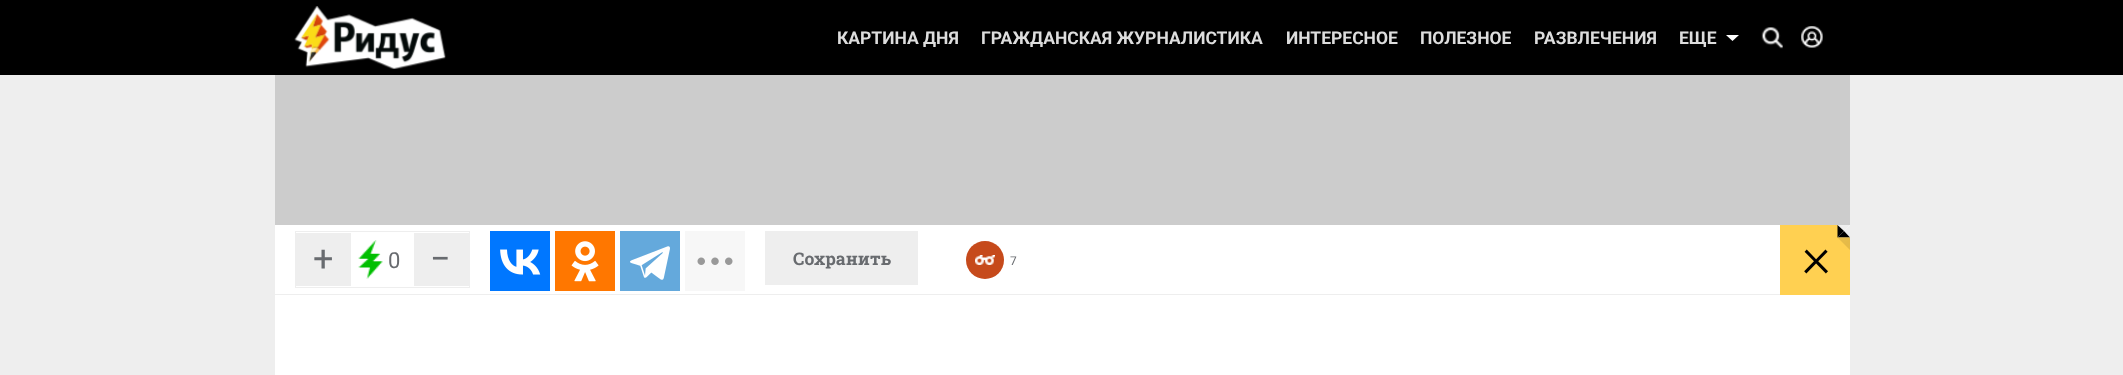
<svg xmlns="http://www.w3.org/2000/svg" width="2123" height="375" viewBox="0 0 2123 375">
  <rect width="100%" height="100%" fill="rgb(238,238,238)"/>
  <rect x="0" y="0" width="2123" height="75" fill="rgb(0,0,0)"/>
  <image x="294" y="6" width="152" height="63" href="pic1.png"/>
  <g font-family="Roboto" font-size="17.5" font-weight="bold" fill="rgb(221,221,221)">
    <text x="837" y="44">КАРТИНА ДНЯ</text>
    <text x="981" y="44">ГРАЖДАНСКАЯ ЖУРНАЛИСТИКА</text>
    <text x="1286" y="44">ИНТЕРЕСНОЕ</text>
    <text x="1420" y="44">ПОЛЕЗНОЕ</text>
    <text x="1534" y="44">РАЗВЛЕЧЕНИЯ</text>
    <text x="1679" y="44">ЕЩЕ</text>
  </g>
  <path d="M1726 35H1739L1732.5 41Z" fill="rgb(255,255,255)"/>
  <image x="1761" y="27" width="22" height="22" href="pic2.png"/>
  <image x="1801" y="26" width="22" height="22" href="pic3.png"/>
  <rect x="275" y="75" width="1575" height="150" fill="rgb(204,204,204)"/>
  <rect x="275" y="225" width="1575" height="150" fill="rgb(255,255,255)"/>
  <rect x="275" y="294" width="1505" height="1" fill="rgb(238,238,238)"/>
  <rect x="295.5" y="231.5" width="174" height="56" fill="none" stroke="rgb(238,238,238)"/>
  <rect x="296" y="233" width="55" height="53" fill="rgb(238,238,238)"/>
  <text x="313" y="271" font-family="Roboto" font-size="36" fill="rgb(104,107,111)">+</text>
  <image x="358" y="240" width="25" height="39" href="pic4.png"/>
  <text x="388" y="268" font-family="Roboto" font-size="22" fill="rgb(104,107,111)">0</text>
  <rect x="414" y="233" width="55" height="53" fill="rgb(238,238,238)"/>
  <text x="430" y="271" font-family="Roboto" font-size="36" fill="rgb(104,107,111)">−</text>
  <rect x="490" y="231" width="60" height="60" fill="rgb(0,119,255)"/>
  <image x="500" y="249" width="41" height="26" href="pic5.png"/>
  <rect x="555" y="231" width="60" height="60" fill="rgb(255,119,0)"/>
  <image x="571" y="241" width="28" height="41" href="pic6.png"/>
  <rect x="620" y="231" width="60" height="60" fill="rgb(100,169,220)"/>
  <image x="630" y="246" width="40" height="34" href="pic7.png"/>
  <rect x="685" y="231" width="60" height="60" fill="rgb(247,247,247)"/>
  <image x="697" y="257" width="36" height="8" href="pic8.png"/>
  <rect x="765" y="231" width="153" height="54" fill="rgb(238,238,238)"/>
  <text x="793" y="265" font-family="Roboto Slab" font-size="17.5" font-weight="bold" fill="rgb(104,107,111)">Сохранить</text>
  <circle cx="985" cy="260" r="19" fill="rgb(198,74,27)"/>
  <image x="975" y="255" width="20" height="10" href="pic9.png"/>
  <text x="1010" y="265" font-family="Roboto" font-size="12" fill="rgb(104,107,111)">7</text>
  <rect x="1780" y="225" width="58" height="70" fill="rgb(255,208,81)"/>
  <text x="1802" y="280" font-family="Roboto Slab" font-size="56" font-weight="300" fill="rgb(0,0,0)">×</text>
  <rect x="1838" y="238" width="12" height="57" fill="rgb(255,208,81)"/>
  <path d="M1836 225V238H1849V237.5H1837.5V225Z" fill="rgb(255,208,81)"/>
  <path d="M1837.5 225H1850L1844 231Z" fill="rgb(238,238,238)"/>
  <path d="M1850 225V237.5L1844 231Z" fill="rgb(238,238,238)"/>
  <path d="M1850 237.5H1837.5L1844 231Z" fill="rgb(0,0,0)"/>
  <path d="M1837.5 237.5V225L1844 231Z" fill="rgb(0,0,0)"/>
  <path d="M1837.5 237.5H1850L1844 244Z" fill="rgb(230,187,73)"/>
  <path d="M1850 237.5V250L1844 244Z" fill="rgba(0,0,0,0.1)"/>
</svg>
